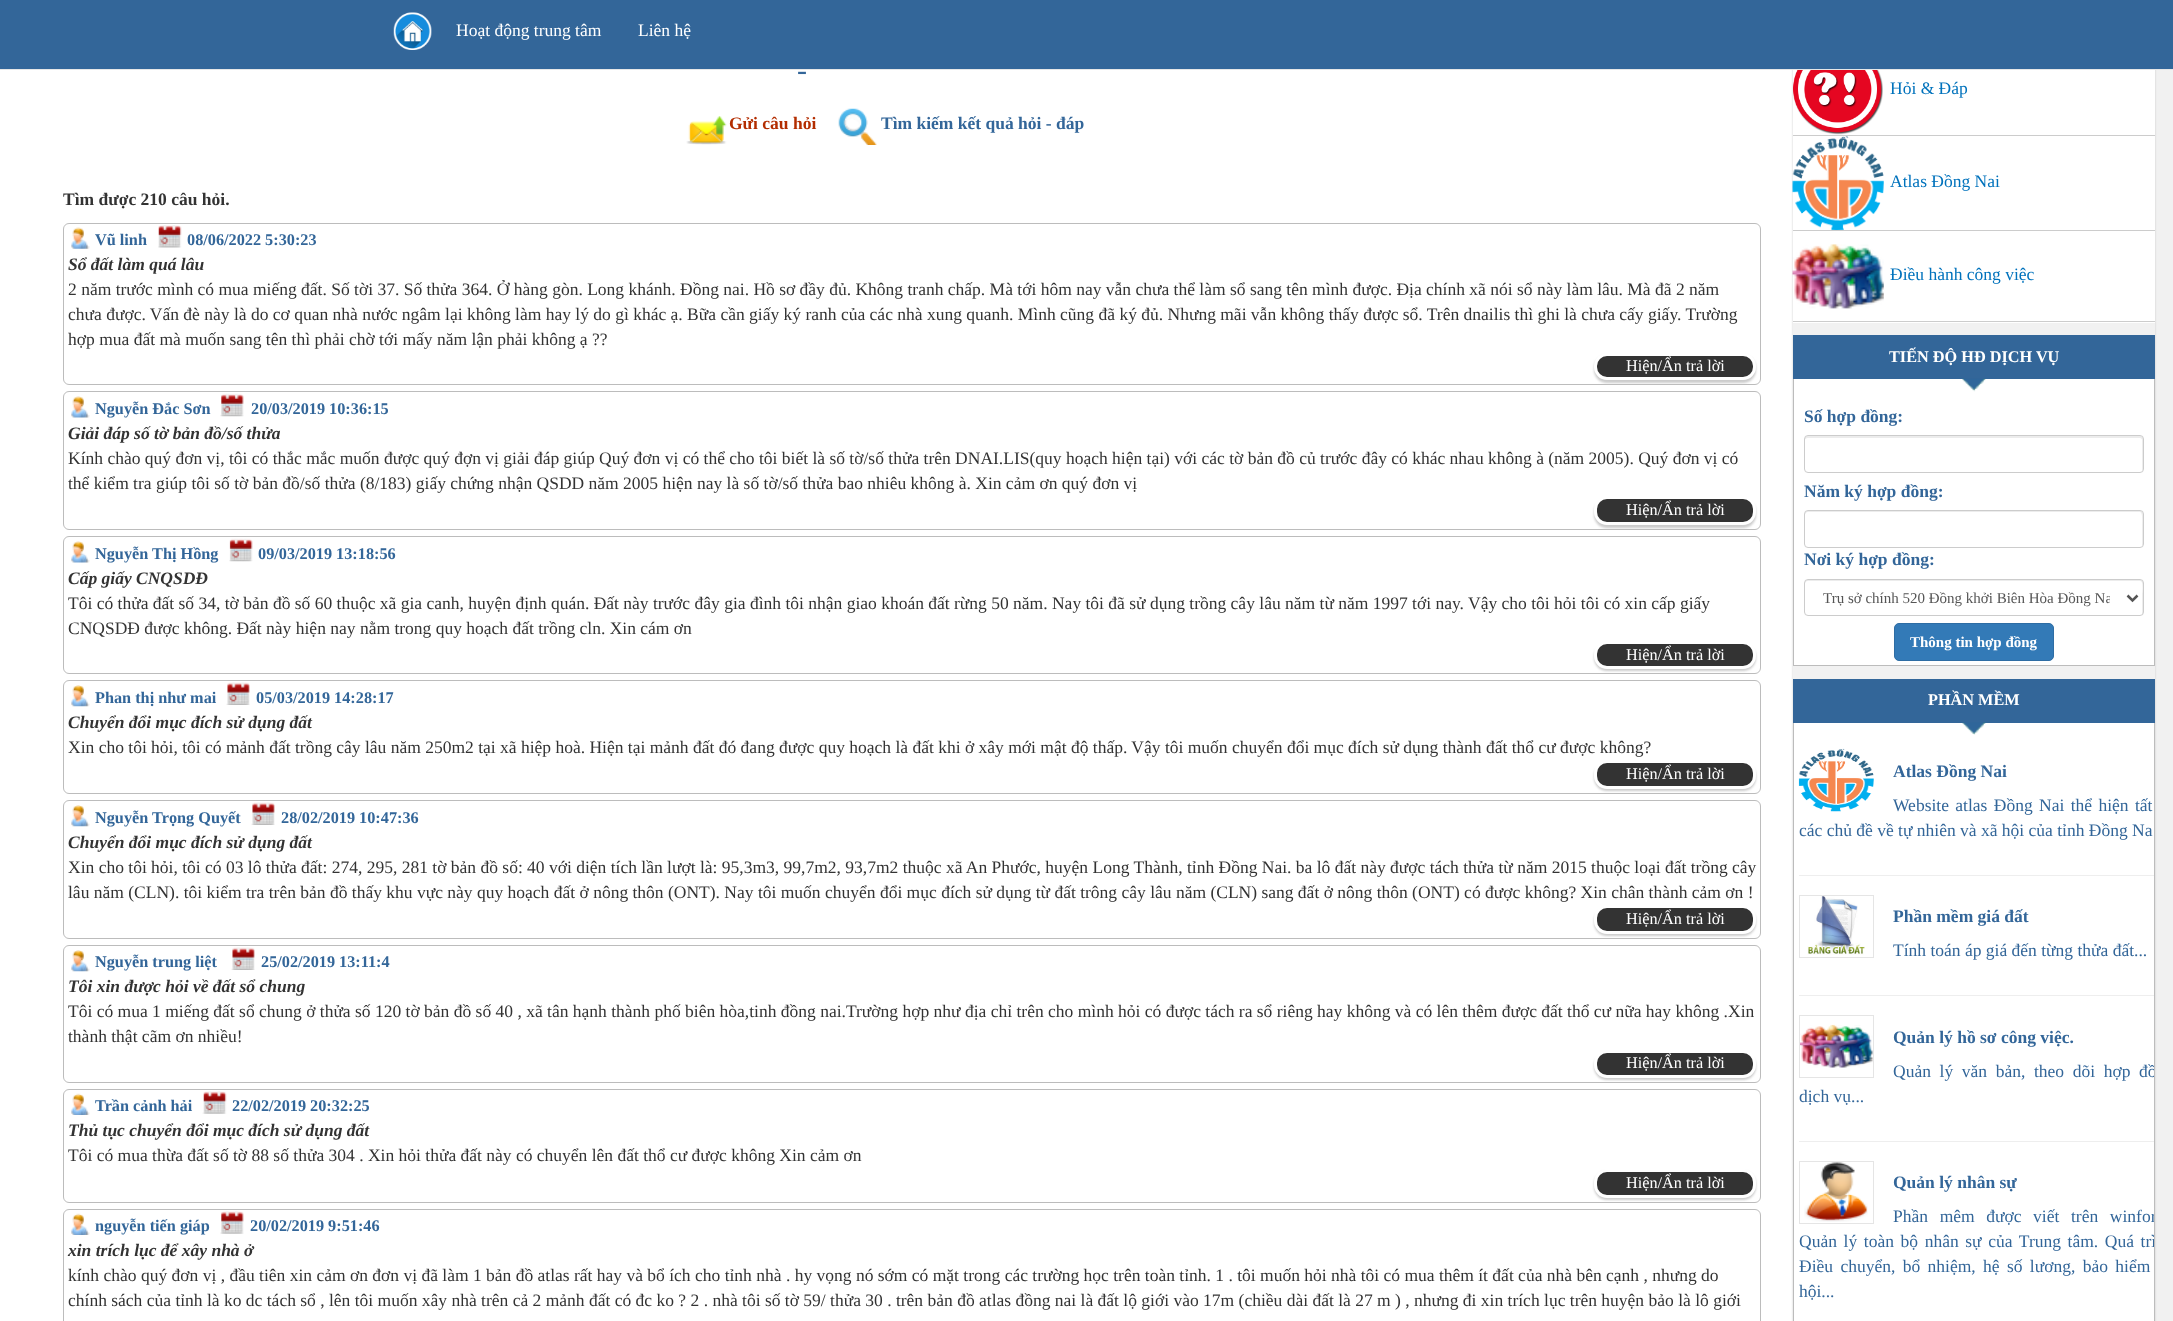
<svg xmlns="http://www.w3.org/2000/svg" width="2173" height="1321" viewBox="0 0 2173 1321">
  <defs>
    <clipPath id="clip1"><rect x="1823" y="588" width="287" height="20"/></clipPath>
    <clipPath id="clip2"><rect x="1799" y="1015" width="355" height="108"/></clipPath>
    <clipPath id="clip3"><rect x="1799" y="1161" width="355" height="157"/></clipPath>
  </defs>
  <rect width="100%" height="100%" fill="rgb(241,241,241)"/>
  <rect x="0" y="70" width="1793" height="1251" fill="rgb(255,255,255)"/>
  <rect x="1793" y="45" width="362" height="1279" fill="rgb(204,204,204)" filter="blur(1px)"/>
  <rect x="0" y="0" width="2173" height="69" fill="rgb(51,102,153)"/>
  <rect x="0" y="69" width="2173" height="1" fill="rgb(231,231,231)"/>
  <image x="393" y="12" width="39" height="38" href="pic1.png"/>
  <g font-family="Liberation Serif" font-size="17.5" fill="rgb(255,255,255)">
    <text x="456" y="36">Hoạt động trung tâm</text>
    <text x="638" y="36">Liên hệ</text>
  </g>
  <text x="797" y="80" font-family="Liberation Serif" font-size="30" fill="rgb(51,102,153)">-</text>
  <image x="686" y="116" width="41" height="29" href="pic2.png"/>
  <text x="729" y="129" font-family="Liberation Serif" font-size="17.5" font-weight="bold" fill="rgb(179,45,0)">Gửi câu hỏi</text>
  <image x="838" y="108" width="39" height="37" href="pic3.png"/>
  <text x="881" y="129" font-family="Liberation Serif" font-size="17.5" font-weight="bold" fill="rgb(51,102,153)">Tìm kiếm kết quả hỏi - đáp</text>
  <text x="63" y="205" font-family="Liberation Serif" font-size="17.5" font-weight="bold" fill="rgb(51,51,51)">Tìm được 210 câu hỏi.</text>
  <rect x="63.5" y="223.5" width="1697" height="161" rx="5.5" fill="none" stroke="rgb(188,188,188)"/>
  <image x="71" y="227" width="19" height="22" href="pic4.png"/>
  <text x="95" y="245" font-family="Liberation Serif" font-size="16.25" font-weight="bold" fill="rgb(51,102,153)">Vũ linh</text>
  <image x="158" y="225" width="24" height="23" href="pic5.png"/>
  <text x="187" y="245" font-family="Liberation Serif" font-size="16.25" font-weight="bold" fill="rgb(51,102,153)">08/06/2022 5:30:23</text>
  <text x="68" y="270" font-family="Liberation Serif" font-size="17.5" font-weight="bold" font-style="italic" fill="rgb(51,51,51)">Sổ đất làm quá lâu</text>
  <g font-family="Liberation Serif" font-size="17.5" fill="rgb(51,51,51)">
    <text>
      <tspan x="68" y="295">2 năm trước mình có mua miếng đất. Số tời 37. Số thửa 364. Ở hàng gòn. Long khánh. Đồng nai. Hồ sơ đầy đủ. Không tranh chấp. Mà tới hôm nay vẫn chưa thể làm sổ sang tên mình được. Địa chính xã nói sổ này làm lâu. Mà đã 2 năm</tspan>
      <tspan x="68" y="320">chưa được. Vấn đè này là do cơ quan nhà nước ngâm lại không làm hay lý do gì khác ạ. Bữa cần giấy ký ranh của các nhà xung quanh. Mình cũng đã ký đủ. Nhưng mãi vẫn không thấy được sổ. Trên dnailis thì ghi là chưa cấy giấy. Trường</tspan>
      <tspan x="68" y="345">hợp mua đất mà muốn sang tên thì phải chờ tới mấy năm lận phải không ạ ??</tspan>
    </text>
  </g>
  <rect x="1594" y="355" width="162" height="28" rx="13" fill="rgb(204,204,204)" filter="blur(1px)"/>
  <rect x="1595.5" y="354.5" width="159" height="24" rx="11.5" fill="rgb(51,51,51)" stroke="rgb(255,255,255)" stroke-width="3"/>
  <text x="1626" y="371" font-family="Liberation Serif" font-size="16.25" fill="rgb(255,255,255)">Hiện/Ẩn trả lời</text>
  <rect x="63.5" y="391.5" width="1697" height="138" rx="5.5" fill="none" stroke="rgb(188,188,188)"/>
  <image x="71" y="396" width="19" height="22" href="pic6.png"/>
  <text x="95" y="414" font-family="Liberation Serif" font-size="16.25" font-weight="bold" fill="rgb(51,102,153)">Nguyễn Đắc Sơn</text>
  <image x="220" y="393" width="24" height="24" href="pic7.png"/>
  <text x="251" y="414" font-family="Liberation Serif" font-size="16.25" font-weight="bold" fill="rgb(51,102,153)">20/03/2019 10:36:15</text>
  <text x="68" y="439" font-family="Liberation Serif" font-size="17.5" font-weight="bold" font-style="italic" fill="rgb(51,51,51)">Giải đáp số tờ bản đồ/số thửa</text>
  <g font-family="Liberation Serif" font-size="17.5" fill="rgb(51,51,51)">
    <text>
      <tspan x="68" y="464">Kính chào quý đơn vị, tôi có thắc mắc muốn được quý đợn vị giải đáp giúp Quý đơn vị có thể cho tôi biết là số tờ/số thửa trên DNAI.LIS(quy hoạch hiện tại) với các tờ bản đồ củ trước đây có khác nhau không à (năm 2005). Quý đơn vị có</tspan>
      <tspan x="68" y="489">thể kiểm tra giúp tôi số tờ bản đồ/số thửa (8/183) giấy chứng nhận QSDD năm 2005 hiện nay là số tờ/số thửa bao nhiêu không à. Xin cảm ơn quý đơn vị</tspan>
    </text>
  </g>
  <rect x="1594" y="499" width="162" height="29" rx="13" fill="rgb(204,204,204)" filter="blur(1px)"/>
  <rect x="1595.5" y="497.5" width="159" height="26" rx="11.5" fill="rgb(51,51,51)" stroke="rgb(255,255,255)" stroke-width="3"/>
  <text x="1626" y="515" font-family="Liberation Serif" font-size="16.25" fill="rgb(255,255,255)">Hiện/Ẩn trả lời</text>
  <rect x="63.5" y="536.5" width="1697" height="137" rx="5.5" fill="none" stroke="rgb(188,188,188)"/>
  <image x="71" y="541" width="19" height="22" href="pic6.png"/>
  <text x="95" y="559" font-family="Liberation Serif" font-size="16.25" font-weight="bold" fill="rgb(51,102,153)">Nguyễn Thị Hồng</text>
  <image x="229" y="538" width="24" height="24" href="pic8.png"/>
  <text x="258" y="559" font-family="Liberation Serif" font-size="16.25" font-weight="bold" fill="rgb(51,102,153)">09/03/2019 13:18:56</text>
  <text x="68" y="584" font-family="Liberation Serif" font-size="17.5" font-weight="bold" font-style="italic" fill="rgb(51,51,51)">Cấp giấy CNQSDĐ</text>
  <g font-family="Liberation Serif" font-size="17.5" fill="rgb(51,51,51)">
    <text>
      <tspan x="68" y="609">Tôi có thửa đất số 34, tờ bản đồ số 60 thuộc xã gia canh, huyện định quán. Đất này trước đây gia đình tôi nhận giao khoán đất rừng 50 năm. Nay tôi đã sử dụng trồng cây lâu năm từ năm 1997 tới nay. Vậy cho tôi hỏi tôi có xin cấp giấy</tspan>
      <tspan x="68" y="634">CNQSDĐ được không. Đất này hiện nay nằm trong quy hoạch đất trồng cln. Xin cám ơn</tspan>
    </text>
  </g>
  <rect x="1594" y="644" width="162" height="27" rx="13" fill="rgb(204,204,204)" filter="blur(1px)"/>
  <rect x="1595.5" y="642.5" width="159" height="25" rx="11.5" fill="rgb(51,51,51)" stroke="rgb(255,255,255)" stroke-width="3"/>
  <text x="1626" y="660" font-family="Liberation Serif" font-size="16.25" fill="rgb(255,255,255)">Hiện/Ẩn trả lời</text>
  <rect x="63.5" y="680.5" width="1697" height="113" rx="5.5" fill="none" stroke="rgb(188,188,188)"/>
  <image x="71" y="685" width="19" height="22" href="pic9.png"/>
  <text x="95" y="703" font-family="Liberation Serif" font-size="16.25" font-weight="bold" fill="rgb(51,102,153)">Phan thị như mai</text>
  <image x="226" y="682" width="24" height="23" href="pic10.png"/>
  <text x="256" y="703" font-family="Liberation Serif" font-size="16.25" font-weight="bold" fill="rgb(51,102,153)">05/03/2019 14:28:17</text>
  <text x="68" y="728" font-family="Liberation Serif" font-size="17.5" font-weight="bold" font-style="italic" fill="rgb(51,51,51)">Chuyển đổi mục đích sử dụng đất</text>
  <text x="68" y="753" font-family="Liberation Serif" font-size="17.5" fill="rgb(51,51,51)">Xin cho tôi hỏi, tôi có mảnh đất trồng cây lâu năm 250m2 tại xã hiệp hoà. Hiện tại mảnh đất đó đang được quy hoạch là đất khi ở xây mới mật độ thấp. Vậy tôi muốn chuyển đổi mục đích sử dụng thành đất thổ cư được không?</text>
  <rect x="1594" y="763" width="162" height="28" rx="13" fill="rgb(204,204,204)" filter="blur(1px)"/>
  <rect x="1595.5" y="761.5" width="159" height="26" rx="11.5" fill="rgb(51,51,51)" stroke="rgb(255,255,255)" stroke-width="3"/>
  <text x="1626" y="779" font-family="Liberation Serif" font-size="16.25" fill="rgb(255,255,255)">Hiện/Ẩn trả lời</text>
  <rect x="63.5" y="800.5" width="1697" height="138" rx="5.5" fill="none" stroke="rgb(188,188,188)"/>
  <image x="71" y="805" width="19" height="22" href="pic9.png"/>
  <text x="95" y="823" font-family="Liberation Serif" font-size="16.25" font-weight="bold" fill="rgb(51,102,153)">Nguyễn Trọng Quyết</text>
  <image x="251" y="802" width="24" height="23" href="pic10.png"/>
  <text x="281" y="823" font-family="Liberation Serif" font-size="16.25" font-weight="bold" fill="rgb(51,102,153)">28/02/2019 10:47:36</text>
  <text x="68" y="848" font-family="Liberation Serif" font-size="17.5" font-weight="bold" font-style="italic" fill="rgb(51,51,51)">Chuyển đổi mục đích sử dụng đất</text>
  <g font-family="Liberation Serif" font-size="17.5" fill="rgb(51,51,51)">
    <text>
      <tspan x="68" y="873">Xin cho tôi hỏi, tôi có 03 lô thửa đất: 274, 295, 281 tờ bản đồ số: 40 với diện tích lần lượt là: 95,3m3, 99,7m2, 93,7m2 thuộc xã An Phước, huyện Long Thành, tỉnh Đồng Nai. ba lô đất này được tách thửa từ năm 2015 thuộc loại đất trồng cây</tspan>
      <tspan x="68" y="898">lâu năm (CLN). tôi kiểm tra trên bản đồ thấy khu vực này quy hoạch đất ở nông thôn (ONT). Nay tôi muốn chuyển đổi mục đích sử dụng từ đất trông cây lâu năm (CLN) sang đất ở nông thôn (ONT) có được không? Xin chân thành cảm ơn !</tspan>
    </text>
  </g>
  <rect x="1594" y="908" width="162" height="28" rx="13" fill="rgb(204,204,204)" filter="blur(1px)"/>
  <rect x="1595.5" y="906.5" width="159" height="26" rx="11.5" fill="rgb(51,51,51)" stroke="rgb(255,255,255)" stroke-width="3"/>
  <text x="1626" y="924" font-family="Liberation Serif" font-size="16.25" fill="rgb(255,255,255)">Hiện/Ẩn trả lời</text>
  <rect x="63.5" y="945.5" width="1697" height="137" rx="5.5" fill="none" stroke="rgb(188,188,188)"/>
  <image x="71" y="950" width="19" height="22" href="pic9.png"/>
  <text x="95" y="967" font-family="Liberation Serif" font-size="16.25" font-weight="bold" fill="rgb(51,102,153)">Nguyễn trung liệt</text>
  <image x="231" y="947" width="24" height="23" href="pic10.png"/>
  <text x="261" y="967" font-family="Liberation Serif" font-size="16.25" font-weight="bold" fill="rgb(51,102,153)">25/02/2019 13:11:4</text>
  <text x="68" y="992" font-family="Liberation Serif" font-size="17.5" font-weight="bold" font-style="italic" fill="rgb(51,51,51)">Tôi xin được hỏi về đất sổ chung</text>
  <g font-family="Liberation Serif" font-size="17.5" fill="rgb(51,51,51)">
    <text>
      <tspan x="68" y="1017">Tôi có mua 1 miếng đất sổ chung ở thửa số 120 tờ bản đồ số 40 , xã tân hạnh thành phố biên hòa,tinh đồng nai.Trường hợp như địa chỉ trên cho mình hỏi có được tách ra sổ riêng hay không và có lên thêm được đất thổ cư nữa hay không .Xin</tspan>
      <tspan x="68" y="1042">thành thật cãm ơn nhiều!</tspan>
    </text>
  </g>
  <rect x="1594" y="1053" width="162" height="27" rx="13" fill="rgb(204,204,204)" filter="blur(1px)"/>
  <rect x="1595.5" y="1051.5" width="159" height="25" rx="11.5" fill="rgb(51,51,51)" stroke="rgb(255,255,255)" stroke-width="3"/>
  <text x="1626" y="1068" font-family="Liberation Serif" font-size="16.25" fill="rgb(255,255,255)">Hiện/Ẩn trả lời</text>
  <rect x="63.5" y="1089.5" width="1697" height="113" rx="5.5" fill="none" stroke="rgb(188,188,188)"/>
  <image x="71" y="1093" width="19" height="22" href="pic11.png"/>
  <text x="95" y="1111" font-family="Liberation Serif" font-size="16.25" font-weight="bold" fill="rgb(51,102,153)">Trần cảnh hải</text>
  <image x="202" y="1091" width="25" height="23" href="pic12.png"/>
  <text x="232" y="1111" font-family="Liberation Serif" font-size="16.25" font-weight="bold" fill="rgb(51,102,153)">22/02/2019 20:32:25</text>
  <text x="68" y="1136" font-family="Liberation Serif" font-size="17.5" font-weight="bold" font-style="italic" fill="rgb(51,51,51)">Thủ tục chuyển đổi mục đích sử dụng đất</text>
  <text x="68" y="1161" font-family="Liberation Serif" font-size="17.5" fill="rgb(51,51,51)">Tôi có mua thừa đất số tờ 88 số thửa 304 . Xin hỏi thửa đất này có chuyển lên đất thổ cư được không Xin cảm ơn</text>
  <rect x="1594" y="1171" width="162" height="29" rx="13" fill="rgb(204,204,204)" filter="blur(1px)"/>
  <rect x="1595.5" y="1170.5" width="159" height="26" rx="11.5" fill="rgb(51,51,51)" stroke="rgb(255,255,255)" stroke-width="3"/>
  <text x="1626" y="1188" font-family="Liberation Serif" font-size="16.25" fill="rgb(255,255,255)">Hiện/Ẩn trả lời</text>
  <rect x="63.5" y="1209.5" width="1697" height="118" rx="5.5" fill="none" stroke="rgb(188,188,188)"/>
  <image x="71" y="1213" width="19" height="22" href="pic11.png"/>
  <text x="95" y="1231" font-family="Liberation Serif" font-size="16.25" font-weight="bold" fill="rgb(51,102,153)">nguyễn tiến giáp</text>
  <image x="220" y="1211" width="24" height="23" href="pic13.png"/>
  <text x="250" y="1231" font-family="Liberation Serif" font-size="16.25" font-weight="bold" fill="rgb(51,102,153)">20/02/2019 9:51:46</text>
  <text x="68" y="1256" font-family="Liberation Serif" font-size="17.5" font-weight="bold" font-style="italic" fill="rgb(51,51,51)">xin trích lục để xây nhà ở</text>
  <g font-family="Liberation Serif" font-size="17.5" fill="rgb(51,51,51)">
    <text>
      <tspan x="68" y="1281">kính chào quý đơn vị , đầu tiên xin cảm ơn đơn vị đã làm 1 bản đồ atlas rất hay và bổ ích cho tỉnh nhà . hy vọng nó sớm có mặt trong các trường học trên toàn tỉnh. 1 . tôi muốn hỏi nhà tôi có mua thêm ít đất của nhà bên cạnh , nhưng do</tspan>
      <tspan x="68" y="1306">chính sách của tỉnh là ko dc tách sổ , lên tôi muốn xây nhà trên cả 2 mảnh đất có đc ko ? 2 . nhà tôi số tờ 59/ thửa 30 . trên bản đồ atlas đồng nai là đất lộ giới vào 17m (chiều dài đất là 27 m ) , nhưng đi xin trích lục trên huyện bảo là lô giới</tspan>
    </text>
  </g>
  <rect x="1793" y="323" width="362" height="356" fill="rgb(241,241,241)"/>
  <rect x="1793" y="70" width="362" height="253" fill="rgb(255,255,255)"/>
  <rect x="1793" y="135" width="362" height="1" fill="rgb(204,204,204)"/>
  <image x="1793" y="70" width="90" height="65" href="pic14.png"/>
  <text x="1890" y="94" font-family="Liberation Serif" font-size="17.5" fill="rgb(0,114,188)">Hỏi &amp; Đáp</text>
  <rect x="1793" y="230" width="362" height="1" fill="rgb(204,204,204)"/>
  <image x="1792" y="136" width="92" height="94" href="pic15.png"/>
  <text x="1890" y="187" font-family="Liberation Serif" font-size="17.5" fill="rgb(0,114,188)">Atlas Đồng Nai</text>
  <rect x="1793" y="321" width="362" height="1" fill="rgb(204,204,204)"/>
  <image x="1792" y="244" width="92" height="65" href="pic16.png"/>
  <text x="1890" y="280" font-family="Liberation Serif" font-size="17.5" fill="rgb(0,114,188)">Điều hành công việc</text>
  <rect x="1794" y="379" width="360" height="286" fill="rgb(255,255,255)"/>
  <rect x="1793" y="335" width="362" height="44" fill="rgb(51,102,153)"/>
  <text x="1889" y="362" font-family="Liberation Serif" font-size="16.25" font-weight="bold" fill="rgb(255,255,255)">TIẾN ĐỘ HĐ DỊCH VỤ</text>
  <image x="1962" y="378" width="24" height="14" href="pic17.png"/>
  <rect x="2154" y="379" width="1" height="287" fill="rgb(188,188,188)"/>
  <rect x="1793" y="665" width="362" height="1" fill="rgb(188,188,188)"/>
  <rect x="1793" y="379" width="1" height="287" fill="rgb(188,188,188)"/>
  <text x="1804" y="422" font-family="Liberation Serif" font-size="17.5" font-weight="bold" fill="rgb(51,102,153)">Số hợp đồng:</text>
  <path d="M1808 438H2140C2141 438 2142 439 2142 440V471C2143 470 2143 469 2143 468V438C2143 437 2142 436 2140 436H1808C1806 436 1805 437 1805 438V440C1805 439 1806 438 1808 438Z" fill="rgb(236,236,236)"/>
  <rect x="1804.5" y="435.5" width="339" height="37" rx="3.5" fill="none" stroke="rgb(204,204,204)"/>
  <text x="1804" y="497" font-family="Liberation Serif" font-size="17.5" font-weight="bold" fill="rgb(51,102,153)">Năm ký hợp đồng:</text>
  <path d="M1808 512H2140C2143 512 2142 524 2142 525V546C2143 545 2143 544 2143 544V514C2143 512 2142 511 2140 511H1808C1806 511 1805 512 1805 514V515C1805 514 1806 512 1808 512Z" fill="rgb(236,236,236)"/>
  <rect x="1804.5" y="510.5" width="339" height="37" rx="3.5" fill="none" stroke="rgb(204,204,204)"/>
  <text x="1804" y="565" font-family="Liberation Serif" font-size="17.5" font-weight="bold" fill="rgb(51,102,153)">Nơi ký hợp đồng:</text>
  <path d="M1808 581H2140C2144 581 2142 593 2142 594V615C2143 614 2143 613 2143 612V582C2143 581 2142 580 2140 580H1808C1806 580 1805 581 1805 582V584C1805 582 1806 581 1808 581Z" fill="rgb(236,236,236)"/>
  <rect x="1804.5" y="579.5" width="339" height="36" rx="3.5" fill="none" stroke="rgb(204,204,204)"/>
  <path d="M2127.5 595.5L2132.5 600.5L2137.5 595.5" fill="none" stroke="rgb(85,85,85)" stroke-width="2.5"/>
  <g clip-path="url(#clip1)">
    <text x="1823" y="603" font-family="Liberation Serif" font-size="15" fill="rgb(85,85,85)">Trụ sở chính 520 Đồng khởi Biên Hòa Đồng Na</text>
  </g>
  <rect x="1894.5" y="623.5" width="159" height="37" rx="4.5" fill="rgb(51,122,183)" stroke="rgb(46,109,164)"/>
  <text x="1910" y="647" font-family="Liberation Serif" font-size="15" font-weight="bold" fill="rgb(255,255,255)">Thông tin hợp đồng</text>
  <rect x="1794" y="723" width="360" height="598" fill="rgb(255,255,255)"/>
  <rect x="1793" y="679" width="362" height="44" fill="rgb(51,102,153)"/>
  <text x="1928" y="705" font-family="Liberation Serif" font-size="16.25" font-weight="bold" fill="rgb(255,255,255)">PHẦN MỀM</text>
  <image x="1962" y="722" width="24" height="13" href="pic18.png"/>
  <rect x="2154" y="723" width="1" height="598" fill="rgb(188,188,188)"/>
  <rect x="1793" y="723" width="1" height="598" fill="rgb(188,188,188)"/>
  <image x="1798" y="748" width="76" height="64" href="pic19.png"/>
  <text x="1893" y="777" font-family="Liberation Serif" font-size="17.5" font-weight="bold" fill="rgb(51,102,153)">Atlas Đồng Nai</text>
  <g font-family="Liberation Serif" font-size="17.5" fill="rgb(51,102,153)">
    <text x="1893" y="811" word-spacing="2">Website atlas Đồng Nai thể hiện tất</text>
    <text x="1799" y="836">các chủ đề về tự nhiên và xã hội của tỉnh Đồng Na</text>
  </g>
  <rect x="1799" y="875" width="355" height="1" fill="rgb(238,238,238)"/>
  <rect x="1799.5" y="895.5" width="74" height="62" fill="none" stroke="rgb(229,229,229)"/>
  <image x="1807" y="896" width="58" height="59" href="pic20.png"/>
  <text x="1893" y="922" font-family="Liberation Serif" font-size="17.5" font-weight="bold" fill="rgb(51,102,153)">Phần mềm giá đất</text>
  <text x="1893" y="956" font-family="Liberation Serif" font-size="17.5" fill="rgb(51,102,153)">Tính toán áp giá đến từng thửa đất...</text>
  <rect x="1799" y="995" width="355" height="1" fill="rgb(238,238,238)"/>
  <rect x="1799.5" y="1015.5" width="74" height="62" fill="none" stroke="rgb(229,229,229)"/>
  <image x="1800" y="1024" width="73" height="44" href="pic21.png"/>
  <text x="1893" y="1043" font-family="Liberation Serif" font-size="17.5" font-weight="bold" fill="rgb(51,102,153)">Quản lý hồ sơ công việc.</text>
  <g clip-path="url(#clip2)">
    <text x="1893" y="1077" word-spacing="4.25" font-family="Liberation Serif" font-size="17.5" fill="rgb(51,102,153)">Quản lý văn bản, theo dõi hợp đồ</text>
  </g>
  <text x="1799" y="1102" font-family="Liberation Serif" font-size="17.5" fill="rgb(51,102,153)">dịch vụ...</text>
  <rect x="1799" y="1141" width="355" height="1" fill="rgb(238,238,238)"/>
  <rect x="1799.5" y="1161.5" width="74" height="62" fill="none" stroke="rgb(229,229,229)"/>
  <image x="1804" y="1162" width="64" height="60" href="pic22.png"/>
  <text x="1893" y="1188" font-family="Liberation Serif" font-size="17.5" font-weight="bold" fill="rgb(51,102,153)">Quản lý nhân sự</text>
  <g clip-path="url(#clip3)">
    <g font-family="Liberation Serif" font-size="17.5" fill="rgb(51,102,153)">
      <text x="1893" y="1222" word-spacing="7.25">Phần mêm được viết trên winfor</text>
      <text x="1799" y="1247" word-spacing="2.25">Quản lý toàn bộ nhân sự của Trung tâm. Quá trì</text>
    </g>
  </g>
  <g font-family="Liberation Serif" font-size="17.5" fill="rgb(51,102,153)">
    <text>
      <tspan x="1799" y="1272" word-spacing="3">Điều chuyển, bổ nhiệm, hệ số lương, bảo hiểm</tspan>
      <tspan x="1799" y="1297">hội...</tspan>
    </text>
  </g>
</svg>
